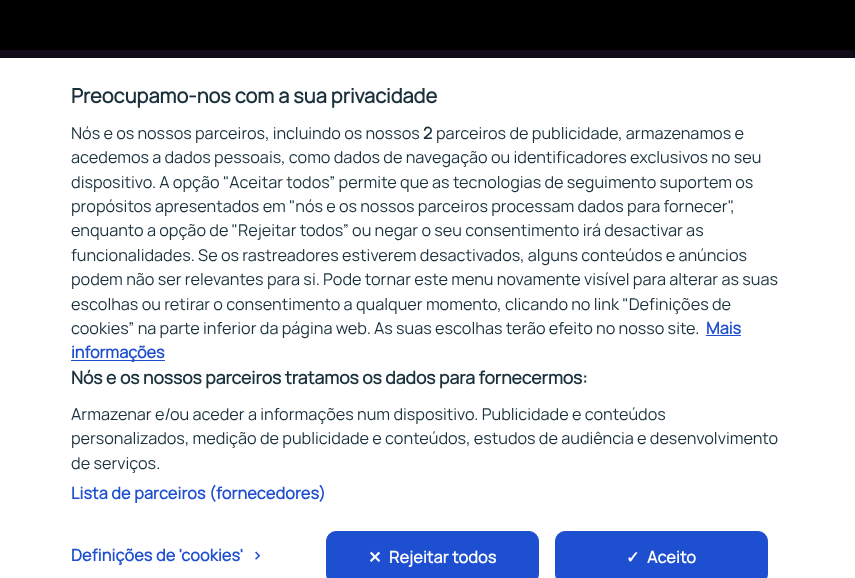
<svg xmlns="http://www.w3.org/2000/svg" width="855" height="578" viewBox="0 0 855 578">
  <rect width="100%" height="100%" fill="rgb(17,10,25)"/>
  <rect x="0" y="0" width="855" height="50" fill="rgb(0,0,0)"/>
  <rect x="0" y="58" width="855" height="520" fill="rgb(255,255,255)"/>
  <text x="71" y="103" font-family="Manrope" font-size="20" font-weight="bold" fill="rgb(26,49,60)">Preocupamo-nos com a sua privacidade</text>
  <text x="71" y="139" font-family="Manrope" font-size="16.25" fill="rgb(26,49,60)">Nós e os nossos parceiros, incluindo os nossos</text>
  <text x="423" y="139" font-family="Manrope" font-size="16.25" font-weight="bold" fill="rgb(26,49,60)">2</text>
  <g font-family="Manrope" font-size="16.25" fill="rgb(26,49,60)">
    <text x="436" y="139">parceiros de publicidade, armazenamos e</text>
    <text>
      <tspan x="71" y="163">acedemos a dados pessoais, como dados de navegação ou identificadores exclusivos no seu</tspan>
      <tspan x="71" y="188">dispositivo. A opção "Aceitar todos” permite que as tecnologias de seguimento suportem os</tspan>
      <tspan x="71" y="212">propósitos apresentados em "nós e os nossos parceiros processam dados para fornecer",</tspan>
      <tspan x="71" y="236">enquanto a opção de "Rejeitar todos” ou negar o seu consentimento irá desactivar as</tspan>
      <tspan x="71" y="261">funcionalidades. Se os rastreadores estiverem desactivados, alguns conteúdos e anúncios</tspan>
      <tspan x="71" y="285">podem não ser relevantes para si. Pode tornar este menu novamente visível para alterar as suas</tspan>
      <tspan x="71" y="310">escolhas ou retirar o consentimento a qualquer momento, clicando no link "Definições de</tspan>
      <tspan x="71" y="334">cookies” na parte inferior da página web. As suas escolhas terão efeito no nosso site.</tspan>
    </text>
  </g>
  <text x="706" y="334" font-family="Manrope" font-size="16.25" font-weight="bold" fill="rgb(30,79,208)">Mais</text>
  <rect x="706" y="335" width="35" height="1" fill="rgb(30,79,208)"/>
  <rect x="71" y="360" width="94" height="1" fill="rgb(30,79,208)"/>
  <text x="71" y="358" font-family="Manrope" font-size="16.25" font-weight="bold" fill="rgb(30,79,208)">informações</text>
  <text x="71" y="384" font-family="Manrope" font-size="17.6" font-weight="bold" fill="rgb(26,49,60)">Nós e os nossos parceiros tratamos os dados para fornecermos:</text>
  <g font-family="Manrope" font-size="16.25" fill="rgb(26,49,60)">
    <text>
      <tspan x="71" y="420">Armazenar e/ou aceder a informações num dispositivo. Publicidade e conteúdos</tspan>
      <tspan x="71" y="444">personalizados, medição de publicidade e conteúdos, estudos de audiência e desenvolvimento</tspan>
      <tspan x="71" y="469">de serviços.</tspan>
    </text>
  </g>
  <g font-family="Manrope" font-size="16.25" font-weight="bold" letter-spacing="0.15" fill="rgb(30,79,208)">
    <text x="71" y="499">Lista de parceiros (fornecedores)</text>
    <text x="71" y="561">Definições de 'cookies'</text>
    <text x="252" y="561">&gt;</text>
  </g>
  <rect x="326.5" y="531.5" width="212" height="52" rx="9.5" fill="rgb(30,79,208)" stroke="rgb(30,79,208)"/>
  <text x="368" y="563" font-family="DejaVu Sans" font-size="16.25" font-weight="bold" letter-spacing="0.15" fill="rgb(255,255,255)">✕</text>
  <text x="389" y="563" font-family="Manrope" font-size="16.25" font-weight="bold" letter-spacing="0.15" fill="rgb(255,255,255)">Rejeitar todos</text>
  <rect x="555.5" y="531.5" width="212" height="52" rx="9.5" fill="rgb(30,79,208)" stroke="rgb(30,79,208)"/>
  <text x="626" y="563" font-family="DejaVu Sans" font-size="16.25" font-weight="bold" letter-spacing="0.15" fill="rgb(255,255,255)">✓</text>
  <text x="647" y="563" font-family="Manrope" font-size="16.25" font-weight="bold" letter-spacing="0.15" fill="rgb(255,255,255)">Aceito</text>
</svg>
